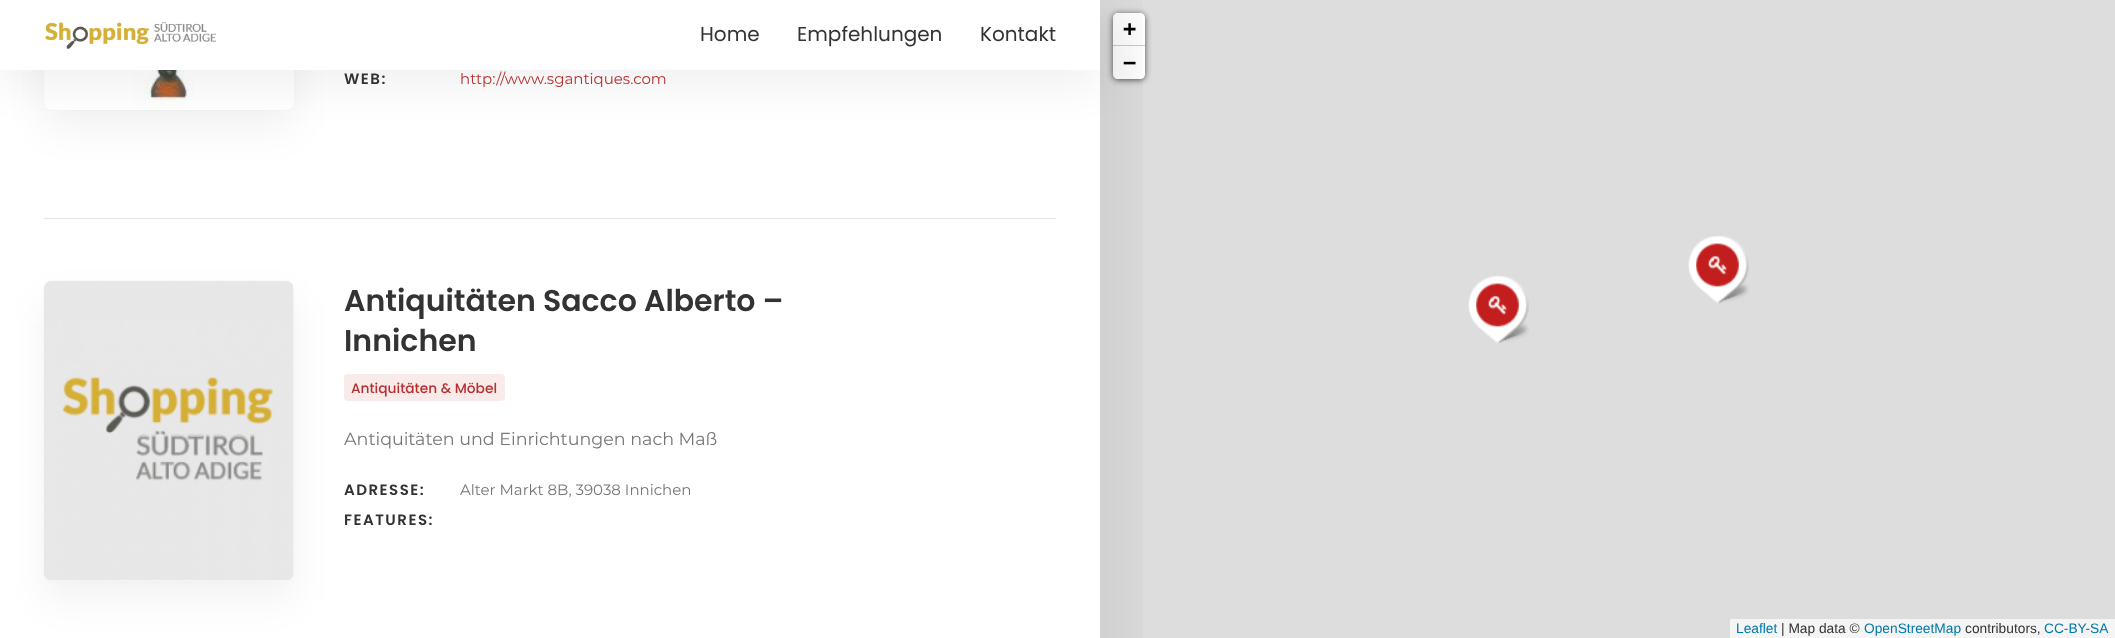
<svg xmlns="http://www.w3.org/2000/svg" width="2115" height="638" viewBox="0 0 2115 638">
  <defs>
    <clipPath id="clip1"><rect x="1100" y="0" width="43" height="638"/></clipPath>
  </defs>
  <rect width="100%" height="100%" fill="rgb(255,255,255)"/>
  <rect x="1100" y="0" width="1015" height="638" fill="rgb(221,221,221)"/>
  <rect x="1113" y="14" width="32" height="66" rx="5" fill="rgba(0,0,0,0.65)" filter="blur(3px)"/>
  <path d="M1118 13H1140C1143 13 1145 15 1145 18V46H1113V18C1113 15 1115 13 1118 13Z" fill="rgb(255,255,255)"/>
  <rect x="1113" y="45" width="32" height="1" fill="rgb(204,204,204)"/>
  <path d="M1113 46H1145V74C1145 77 1143 79 1140 79H1118C1115 79 1113 77 1113 74Z" fill="rgb(255,255,255)"/>
  <g clip-path="url(#clip1)">
    <rect x="123" y="0" width="1015" height="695" fill="rgba(0,0,0,0.05)" filter="blur(19px)"/>
  </g>
  <rect x="43.5" y="-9.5" width="251" height="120" rx="8.5" fill="none" stroke="rgb(252,252,252)"/>
  <rect x="44" y="-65" width="250" height="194" rx="8" fill="rgba(0,0,0,0.05)" filter="blur(19px)"/>
  <rect x="44" y="-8" width="250" height="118" rx="8" fill="rgb(255,255,255)"/>
  <image x="104" y="70" width="120" height="39" href="pic3.png"/>
  <rect x="0" y="19" width="1100" height="70" fill="rgba(0,0,0,0.05)" filter="blur(19px)"/>
  <rect x="0" y="0" width="1100" height="70" fill="rgb(255,255,255)"/>
  <image x="45" y="22" width="172" height="27" href="pic1.png"/>
  <g font-family="Poppins" font-size="20" fill="rgb(51,51,51)">
    <text x="700" y="41">Home</text>
    <text x="797" y="41">Empfehlungen</text>
    <text x="980" y="41">Kontakt</text>
  </g>
  <g font-family="DejaVu Sans Mono" font-size="22" font-weight="bold" fill="rgb(0,0,0)">
    <text>
      <tspan x="1123" y="36">+</tspan>
      <tspan x="1123" y="70">−</tspan>
    </text>
  </g>
  <rect x="1730" y="619" width="385" height="19" fill="rgb(245,245,245)"/>
  <text x="1736" y="633" font-family="Liberation Sans" font-size="13.75" fill="rgb(0,120,168)">Leaflet</text>
  <text x="1781" y="633" font-family="Liberation Sans" font-size="13.75" fill="rgb(51,51,51)">| Map data ©</text>
  <text x="1864" y="633" font-family="Liberation Sans" font-size="13.75" fill="rgb(0,120,168)">OpenStreetMap</text>
  <text x="1965" y="633" font-family="Liberation Sans" font-size="13.75" fill="rgb(51,51,51)">contributors,</text>
  <text x="2044" y="633" font-family="Liberation Sans" font-size="13.75" fill="rgb(0,120,168)">CC-BY-SA</text>
  <image x="1468" y="276" width="61" height="68" href="pic2.png"/>
  <image x="1688" y="236" width="61" height="68" href="pic2.png"/>
  <text x="344" y="84" font-family="Poppins" font-size="15" font-weight="600" letter-spacing="1.5" fill="rgb(51,51,51)">WEB:</text>
  <text x="460" y="84" font-family="Montserrat" font-size="15" fill="rgb(183,48,47)">http://www.sgantiques.com</text>
  <rect x="44" y="218" width="1012" height="1" fill="rgb(229,229,229)"/>
  <rect x="43.5" y="280.5" width="251" height="302" rx="8.5" fill="none" stroke="rgb(252,252,252)"/>
  <rect x="44" y="300" width="250" height="300" rx="8" fill="rgba(0,0,0,0.05)" filter="blur(19px)"/>
  <rect x="44" y="281" width="250" height="300" rx="8" fill="rgb(255,255,255)"/>
  <image x="44" y="281" width="250" height="300" href="pic4.png"/>
  <g font-family="Poppins" font-size="30" font-weight="600" fill="rgb(51,51,51)">
    <text>
      <tspan x="344" y="311">Antiquitäten Sacco Alberto –</tspan>
      <tspan x="344" y="351">Innichen</tspan>
    </text>
  </g>
  <rect x="344" y="374" width="161" height="27" rx="4" fill="rgb(250,235,235)"/>
  <text x="351" y="393" font-family="Poppins" font-size="13.75" font-weight="500" fill="rgb(183,48,47)">Antiquitäten &amp; Möbel</text>
  <text x="344" y="445" font-family="Montserrat" font-size="17.5" fill="rgb(119,119,119)">Antiquitäten und Einrichtungen nach Maß</text>
  <text x="344" y="495" font-family="Poppins" font-size="15" font-weight="600" letter-spacing="1.5" fill="rgb(51,51,51)">ADRESSE:</text>
  <text x="460" y="495" font-family="Montserrat" font-size="15" fill="rgb(119,119,119)">Alter Markt 8B, 39038 Innichen</text>
  <text x="344" y="525" font-family="Poppins" font-size="15" font-weight="600" letter-spacing="1.5" fill="rgb(51,51,51)">FEATURES:</text>
</svg>
